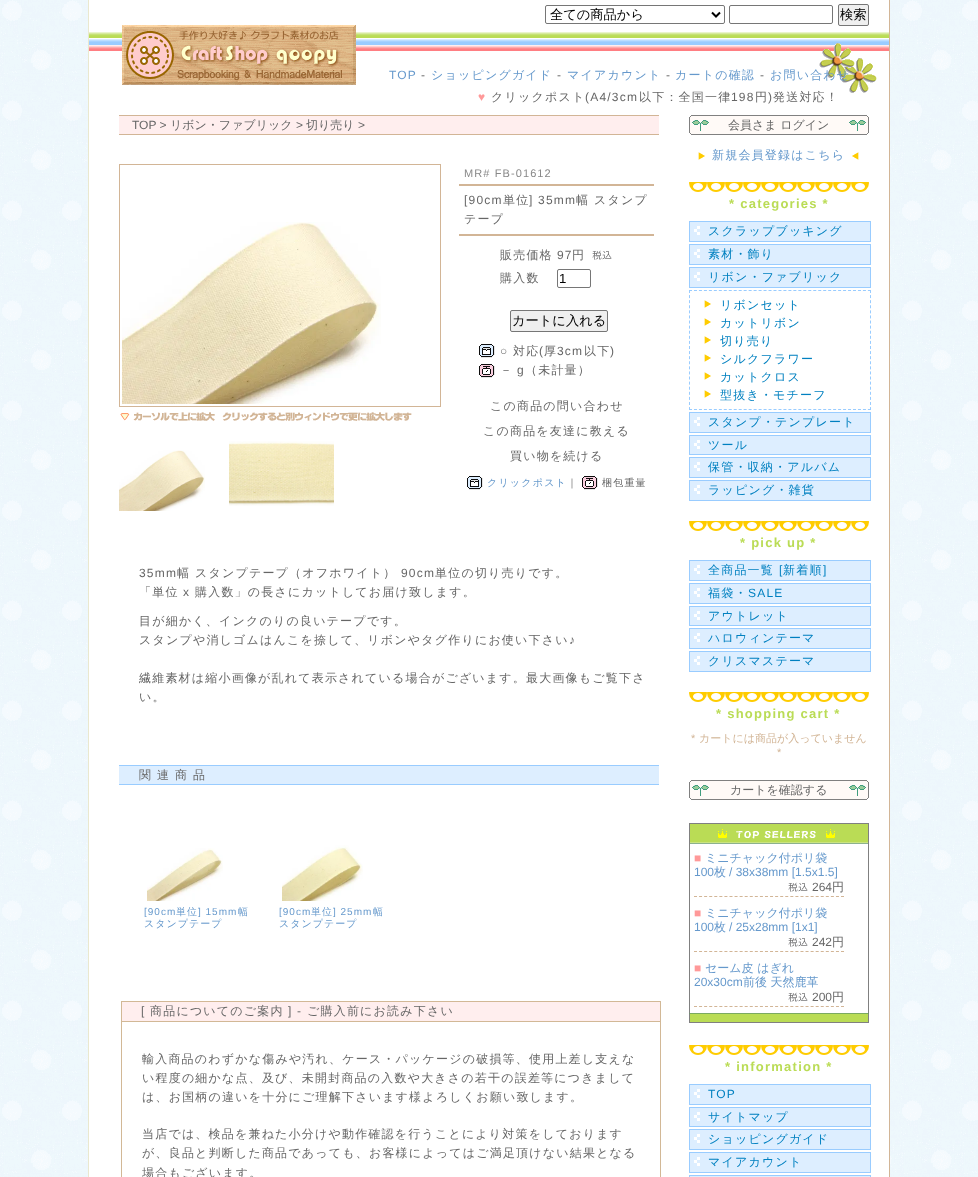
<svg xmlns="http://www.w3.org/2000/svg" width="978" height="1177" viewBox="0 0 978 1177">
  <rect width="100%" height="100%" fill="rgb(255,255,255)"/>
  <image x="0" y="0" width="978" height="1177" href="pic1.png"/>
  <rect x="89" y="0" width="800" height="1177" fill="rgb(255,255,255)"/>
  <rect x="889" y="0" width="1" height="1177" fill="rgb(210,181,150)"/>
  <rect x="88" y="0" width="1" height="1177" fill="rgb(234,232,206)"/>
  <image x="89" y="32" width="800" height="61" href="pic2.png"/>
  <rect x="545.5" y="5.5" width="179" height="18" rx="1.5" fill="none" stroke="rgb(118,118,118)"/>
  <path d="M712 12.5L716 16.5L720 12.5" fill="none" stroke="rgb(0,0,0)" stroke-width="2"/>
  <text x="550" y="19" font-family="WenQuanYi Zen Hei" font-size="13.25" font-weight="500" fill="rgb(0,0,0)">全ての商品から</text>
  <rect x="729.5" y="5.5" width="103" height="18" rx="1.5" fill="none" stroke="rgb(118,118,118)"/>
  <rect x="838.5" y="4.5" width="30" height="21" rx="1.5" fill="rgb(239,239,239)" stroke="rgb(118,118,118)"/>
  <text x="840" y="19" font-family="WenQuanYi Zen Hei" font-size="13.25" font-weight="500" fill="rgb(0,0,0)">検索</text>
  <image x="122" y="25" width="234" height="60" href="pic3.png"/>
  <text x="389" y="79" font-family="Liberation Sans" font-size="12" letter-spacing="1.2" fill="rgb(102,153,204)">TOP</text>
  <text x="421" y="79" font-family="Liberation Sans" font-size="12" letter-spacing="1.2" fill="rgb(102,102,102)">-</text>
  <text x="431" y="79" font-family="WenQuanYi Zen Hei" font-size="12" font-weight="500" letter-spacing="1.2" fill="rgb(102,153,204)">ショッピングガイド</text>
  <text x="557" y="79" font-family="Liberation Sans" font-size="12" letter-spacing="1.2" fill="rgb(102,102,102)">-</text>
  <text x="567" y="79" font-family="WenQuanYi Zen Hei" font-size="12" font-weight="500" letter-spacing="1.2" fill="rgb(102,153,204)">マイアカウント</text>
  <text x="666" y="79" font-family="Liberation Sans" font-size="12" letter-spacing="1.2" fill="rgb(102,102,102)">-</text>
  <text x="675" y="79" font-family="WenQuanYi Zen Hei" font-size="12" font-weight="500" letter-spacing="1.2" fill="rgb(102,153,204)">カートの確認</text>
  <text x="760" y="79" font-family="Liberation Sans" font-size="12" letter-spacing="1.2" fill="rgb(102,102,102)">-</text>
  <text x="770" y="79" font-family="WenQuanYi Zen Hei" font-size="12" font-weight="500" letter-spacing="1.2" fill="rgb(102,153,204)">お問い合わせ</text>
  <text x="478" y="101" font-family="Liberation Sans" font-size="12" letter-spacing="1.2" fill="rgb(255,153,153)">♥</text>
  <text x="491" y="101" font-family="WenQuanYi Zen Hei" font-size="12" font-weight="500" letter-spacing="1.2" fill="rgb(102,102,102)">クリックポスト</text>
  <text x="585" y="101" font-family="Liberation Sans" font-size="12" letter-spacing="1.2" fill="rgb(102,102,102)">(A4/3cm</text>
  <text x="639" y="101" font-family="WenQuanYi Zen Hei" font-size="12" font-weight="500" letter-spacing="1.2" fill="rgb(102,102,102)">以下：全国一律</text>
  <text x="731" y="101" font-family="Liberation Sans" font-size="12" letter-spacing="1.2" fill="rgb(102,102,102)">198</text>
  <text x="755" y="101" font-family="WenQuanYi Zen Hei" font-size="12" font-weight="500" letter-spacing="1.2" fill="rgb(102,102,102)">円</text>
  <text x="768" y="101" font-family="Liberation Sans" font-size="12" letter-spacing="1.2" fill="rgb(102,102,102)">)</text>
  <text x="773" y="101" font-family="WenQuanYi Zen Hei" font-size="12" font-weight="500" letter-spacing="1.2" fill="rgb(102,102,102)">発送対応！</text>
  <rect x="119" y="116" width="540" height="18" fill="rgb(255,238,238)"/>
  <rect x="119" y="115" width="540" height="1" fill="rgb(210,181,150)"/>
  <rect x="119" y="134" width="540" height="1" fill="rgb(210,181,150)"/>
  <text x="132" y="129" font-family="Liberation Sans" font-size="12" fill="rgb(102,102,102)">TOP &gt;</text>
  <text x="170" y="129" font-family="WenQuanYi Zen Hei" font-size="12" font-weight="500" fill="rgb(102,102,102)">リボン・ファブリック</text>
  <text x="296" y="129" font-family="Liberation Sans" font-size="12" fill="rgb(102,102,102)">&gt;</text>
  <text x="306" y="129" font-family="WenQuanYi Zen Hei" font-size="12" font-weight="500" fill="rgb(102,102,102)">切り売り</text>
  <text x="358" y="129" font-family="Liberation Sans" font-size="12" fill="rgb(102,102,102)">&gt;</text>
  <rect x="119.5" y="164.5" width="321" height="242" fill="none" stroke="rgb(210,181,150)"/>
  <image x="122" y="222" width="259" height="182" href="pic4.png"/>
  <image x="120" y="412" width="292" height="9" href="pic5.png"/>
  <image x="119" y="450" width="86" height="61" href="pic6.png"/>
  <image x="229" y="441" width="105" height="65" href="pic7.png"/>
  <text x="464" y="177" font-family="Liberation Sans" font-size="11" letter-spacing="1.1" fill="rgb(136,136,136)">MR# FB-01612</text>
  <rect x="459" y="184" width="195" height="2" fill="rgb(210,181,150)"/>
  <rect x="459" y="234" width="195" height="2" fill="rgb(210,181,150)"/>
  <text x="464" y="204" font-family="Liberation Sans" font-size="12" letter-spacing="1.2" fill="rgb(102,102,102)">[90cm</text>
  <text x="503" y="204" font-family="WenQuanYi Zen Hei" font-size="12" font-weight="500" letter-spacing="1.2" fill="rgb(102,102,102)">単位</text>
  <text x="529" y="204" font-family="Liberation Sans" font-size="12" letter-spacing="1.2" fill="rgb(102,102,102)">] 35mm</text>
  <g font-family="WenQuanYi Zen Hei" font-size="12" font-weight="500" letter-spacing="1.2" fill="rgb(102,102,102)">
    <text x="576" y="204">幅 スタンプ</text>
    <text x="464" y="223">テープ</text>
    <text x="500" y="259">販売価格</text>
  </g>
  <text x="557" y="259" font-family="Liberation Sans" font-size="12" letter-spacing="1.2" fill="rgb(102,102,102)">97</text>
  <text x="572" y="259" font-family="WenQuanYi Zen Hei" font-size="12" font-weight="500" letter-spacing="1.2" fill="rgb(102,102,102)">円</text>
  <image x="592" y="250" width="20" height="10" href="pic8.png"/>
  <text x="500" y="282" font-family="WenQuanYi Zen Hei" font-size="12" font-weight="500" letter-spacing="1.2" fill="rgb(102,102,102)">購入数</text>
  <rect x="557.5" y="269.5" width="33" height="18" rx="1.5" fill="none" stroke="rgb(118,118,118)"/>
  <text x="559" y="283" font-family="Liberation Sans" font-size="13.25" fill="rgb(0,0,0)">1</text>
  <rect x="510.5" y="310.5" width="97" height="21" rx="1.5" fill="rgb(239,239,239)" stroke="rgb(118,118,118)"/>
  <text x="512" y="325" font-family="WenQuanYi Zen Hei" font-size="13.25" font-weight="500" fill="rgb(0,0,0)">カートに入れる</text>
  <image x="479" y="344" width="16" height="14" href="pic9.png"/>
  <text x="500" y="355" font-family="Liberation Sans" font-size="12" letter-spacing="1.2" fill="rgb(102,102,102)">○</text>
  <text x="513" y="355" font-family="WenQuanYi Zen Hei" font-size="12" font-weight="500" letter-spacing="1.2" fill="rgb(102,102,102)">対応</text>
  <text x="539" y="355" font-family="Liberation Sans" font-size="12" letter-spacing="1.2" fill="rgb(102,102,102)">(</text>
  <text x="544" y="355" font-family="WenQuanYi Zen Hei" font-size="12" font-weight="500" letter-spacing="1.2" fill="rgb(102,102,102)">厚</text>
  <text x="557" y="355" font-family="Liberation Sans" font-size="12" letter-spacing="1.2" fill="rgb(102,102,102)">3cm</text>
  <text x="584" y="355" font-family="WenQuanYi Zen Hei" font-size="12" font-weight="500" letter-spacing="1.2" fill="rgb(102,102,102)">以下</text>
  <text x="610" y="355" font-family="Liberation Sans" font-size="12" letter-spacing="1.2" fill="rgb(102,102,102)">)</text>
  <image x="479" y="364" width="16" height="14" href="pic10.png"/>
  <text x="500" y="374" font-family="WenQuanYi Zen Hei" font-size="12" font-weight="500" letter-spacing="1.2" fill="rgb(102,102,102)">－</text>
  <text x="517" y="374" font-family="Liberation Sans" font-size="12" letter-spacing="1.2" fill="rgb(102,102,102)">g</text>
  <g font-family="WenQuanYi Zen Hei" font-size="12" font-weight="500" letter-spacing="1.2" fill="rgb(102,102,102)">
    <text x="525" y="374">（未計量）</text>
    <text x="490" y="410">この商品の問い合わせ</text>
    <text x="483" y="435">この商品を友達に教える</text>
    <text x="510" y="460">買い物を続ける</text>
  </g>
  <image x="467" y="476" width="16" height="14" href="pic9.png"/>
  <text x="487" y="486" font-family="WenQuanYi Zen Hei" font-size="10" font-weight="500" letter-spacing="1.2" fill="rgb(102,153,204)">クリックポスト</text>
  <text x="567" y="486" font-family="WenQuanYi Zen Hei" font-size="10" font-weight="500" letter-spacing="1.2" fill="rgb(102,102,102)">｜</text>
  <image x="582" y="476" width="16" height="14" href="pic10.png"/>
  <text x="602" y="486" font-family="WenQuanYi Zen Hei" font-size="10" font-weight="500" letter-spacing="1.2" fill="rgb(102,102,102)">梱包重量</text>
  <text x="139" y="577" font-family="Liberation Sans" font-size="12" letter-spacing="1.2" fill="rgb(102,102,102)">35mm</text>
  <text x="177" y="577" font-family="WenQuanYi Zen Hei" font-size="12" font-weight="500" letter-spacing="1.2" fill="rgb(102,102,102)">幅 スタンプテープ（オフホワイト）</text>
  <text x="401" y="577" font-family="Liberation Sans" font-size="12" letter-spacing="1.2" fill="rgb(102,102,102)">90cm</text>
  <g font-family="WenQuanYi Zen Hei" font-size="12" font-weight="500" letter-spacing="1.2" fill="rgb(102,102,102)">
    <text x="435" y="577">単位の切り売りです。</text>
    <text x="139" y="596">「単位</text>
  </g>
  <text x="183" y="596" font-family="Liberation Sans" font-size="12" letter-spacing="1.2" fill="rgb(102,102,102)">x</text>
  <g font-family="WenQuanYi Zen Hei" font-size="12" font-weight="500" letter-spacing="1.2" fill="rgb(102,102,102)">
    <text x="195" y="596">購入数」の長さにカットしてお届け致します。</text>
    <text>
      <tspan x="139" y="625">目が細かく、インクのりの良いテープです。</tspan>
      <tspan x="139" y="644">スタンプや消しゴムはんこを捺して、リボンやタグ作りにお使い下さい</tspan>
    </text>
  </g>
  <text x="569" y="644" font-family="Liberation Sans" font-size="12" letter-spacing="1.2" fill="rgb(102,102,102)">♪</text>
  <g font-family="WenQuanYi Zen Hei" font-size="12" font-weight="500" letter-spacing="1.2" fill="rgb(102,102,102)">
    <text>
      <tspan x="139" y="682">繊維素材は縮小画像が乱れて表示されている場合がございます。最大画像もご覧下さ</tspan>
      <tspan x="139" y="701">い。</tspan>
    </text>
  </g>
  <rect x="119" y="766" width="540" height="18" fill="rgb(221,238,255)"/>
  <rect x="119" y="765" width="540" height="1" fill="rgb(153,204,255)"/>
  <rect x="119" y="784" width="540" height="1" fill="rgb(153,204,255)"/>
  <text x="139" y="779" font-family="WenQuanYi Zen Hei" font-size="12" font-weight="500" letter-spacing="6" fill="rgb(102,102,102)">関連商品</text>
  <image x="147" y="848" width="76" height="53" href="pic11.png"/>
  <text x="144" y="915" font-family="Liberation Sans" font-size="10" letter-spacing="1" fill="rgb(102,153,204)">[90cm</text>
  <text x="176" y="915" font-family="WenQuanYi Zen Hei" font-size="10" font-weight="500" letter-spacing="1" fill="rgb(102,153,204)">単位</text>
  <text x="198" y="915" font-family="Liberation Sans" font-size="10" letter-spacing="1" fill="rgb(102,153,204)">] 15mm</text>
  <g font-family="WenQuanYi Zen Hei" font-size="10" font-weight="500" letter-spacing="1" fill="rgb(102,153,204)">
    <text x="238" y="915">幅</text>
    <text x="144" y="927">スタンプテープ</text>
  </g>
  <image x="282" y="845" width="81" height="56" href="pic12.png"/>
  <text x="279" y="915" font-family="Liberation Sans" font-size="10" letter-spacing="1" fill="rgb(102,153,204)">[90cm</text>
  <text x="311" y="915" font-family="WenQuanYi Zen Hei" font-size="10" font-weight="500" letter-spacing="1" fill="rgb(102,153,204)">単位</text>
  <text x="333" y="915" font-family="Liberation Sans" font-size="10" letter-spacing="1" fill="rgb(102,153,204)">] 25mm</text>
  <g font-family="WenQuanYi Zen Hei" font-size="10" font-weight="500" letter-spacing="1" fill="rgb(102,153,204)">
    <text x="373" y="915">幅</text>
    <text x="279" y="927">スタンプテープ</text>
  </g>
  <rect x="122" y="1002" width="538" height="19" fill="rgb(255,238,238)"/>
  <rect x="121" y="1001" width="540" height="1" fill="rgb(210,184,150)"/>
  <rect x="121" y="1021" width="540" height="1" fill="rgb(210,184,150)"/>
  <rect x="660" y="1021" width="1" height="156" fill="rgb(210,184,150)"/>
  <rect x="660" y="1001" width="1" height="21" fill="rgb(210,184,150)"/>
  <rect x="121" y="1021" width="1" height="156" fill="rgb(210,184,150)"/>
  <rect x="121" y="1001" width="1" height="21" fill="rgb(210,184,150)"/>
  <text x="141" y="1015" font-family="Liberation Sans" font-size="12" letter-spacing="1.2" fill="rgb(102,102,102)">[</text>
  <text x="150" y="1015" font-family="WenQuanYi Zen Hei" font-size="12" font-weight="500" letter-spacing="1.2" fill="rgb(102,102,102)">商品についてのご案内</text>
  <text x="288" y="1015" font-family="Liberation Sans" font-size="12" letter-spacing="1.2" fill="rgb(102,102,102)">] -</text>
  <g font-family="WenQuanYi Zen Hei" font-size="12" font-weight="500" letter-spacing="1.2" fill="rgb(102,102,102)">
    <text x="307" y="1015">ご購入前にお読み下さい</text>
    <text>
      <tspan x="142" y="1063">輸入商品のわずかな傷みや汚れ、ケース・パッケージの破損等、使用上差し支えな</tspan>
      <tspan x="142" y="1082">い程度の細かな点、及び、未開封商品の入数や大きさの若干の誤差等につきまして</tspan>
      <tspan x="142" y="1101">は、お国柄の違いを十分にご理解下さいます様よろしくお願い致します。</tspan>
    </text>
    <text>
      <tspan x="142" y="1138">当店では、検品を兼ねた小分けや動作確認を行うことにより対策をしております</tspan>
      <tspan x="142" y="1157">が、良品と判断した商品であっても、お客様によってはご満足頂けない結果となる</tspan>
      <tspan x="142" y="1177">場合もございます。</tspan>
    </text>
  </g>
  <image x="689" y="115" width="180" height="20" href="pic13.png"/>
  <text x="728" y="129" font-family="WenQuanYi Zen Hei" font-size="12" font-weight="500" fill="rgb(102,102,102)">会員さま ログイン</text>
  <image x="698" y="152" width="7" height="8" href="pic14.png"/>
  <text x="712" y="159" font-family="WenQuanYi Zen Hei" font-size="12" font-weight="500" letter-spacing="1.2" fill="rgb(102,153,204)">新規会員登録はこちら</text>
  <image x="852" y="152" width="7" height="8" href="pic15.png"/>
  <image x="689" y="182" width="180" height="10" href="pic16.png"/>
  <text x="729" y="208" font-family="Liberation Sans" font-size="13" font-weight="bold" letter-spacing="1.25" fill="rgb(186,220,85)">* categories *</text>
  <rect x="689.5" y="221.5" width="181" height="20" fill="rgb(221,238,255)" stroke="rgb(153,204,255)"/>
  <image x="694" y="226" width="6" height="9" href="pic17.png"/>
  <text x="708" y="235" font-family="WenQuanYi Zen Hei" font-size="12" font-weight="500" letter-spacing="1.2" fill="rgb(0,128,192)">スクラップブッキング</text>
  <rect x="689.5" y="244.5" width="181" height="20" fill="rgb(221,238,255)" stroke="rgb(153,204,255)"/>
  <image x="694" y="249" width="6" height="9" href="pic17.png"/>
  <text x="708" y="258" font-family="WenQuanYi Zen Hei" font-size="12" font-weight="500" letter-spacing="1.2" fill="rgb(0,128,192)">素材・飾り</text>
  <rect x="689.5" y="267.5" width="181" height="20" fill="rgb(221,238,255)" stroke="rgb(153,204,255)"/>
  <image x="694" y="272" width="6" height="9" href="pic17.png"/>
  <text x="708" y="281" font-family="WenQuanYi Zen Hei" font-size="12" font-weight="500" letter-spacing="1.2" fill="rgb(0,128,192)">リボン・ファブリック</text>
  <path d="M689 290.5H871" fill="none" stroke="rgb(153,204,255)" stroke-dasharray="3 1.97"/>
  <path d="M870.5 290V410" fill="none" stroke="rgb(153,204,255)" stroke-dasharray="3 2.09"/>
  <path d="M689 409.5H871" fill="none" stroke="rgb(153,204,255)" stroke-dasharray="3 1.97"/>
  <path d="M689.5 290V410" fill="none" stroke="rgb(153,204,255)" stroke-dasharray="3 2.09"/>
  <image x="704" y="300" width="7" height="8" href="pic14.png"/>
  <text x="720" y="309" font-family="WenQuanYi Zen Hei" font-size="12" font-weight="500" letter-spacing="1.2" fill="rgb(0,128,192)">リボンセット</text>
  <image x="704" y="318" width="7" height="8" href="pic14.png"/>
  <text x="720" y="327" font-family="WenQuanYi Zen Hei" font-size="12" font-weight="500" letter-spacing="1.2" fill="rgb(0,128,192)">カットリボン</text>
  <image x="704" y="336" width="7" height="8" href="pic14.png"/>
  <text x="720" y="345" font-family="WenQuanYi Zen Hei" font-size="12" font-weight="500" letter-spacing="1.2" fill="rgb(0,128,192)">切り売り</text>
  <image x="704" y="354" width="7" height="8" href="pic14.png"/>
  <text x="720" y="363" font-family="WenQuanYi Zen Hei" font-size="12" font-weight="500" letter-spacing="1.2" fill="rgb(0,128,192)">シルクフラワー</text>
  <image x="704" y="372" width="7" height="8" href="pic14.png"/>
  <text x="720" y="381" font-family="WenQuanYi Zen Hei" font-size="12" font-weight="500" letter-spacing="1.2" fill="rgb(0,128,192)">カットクロス</text>
  <image x="704" y="390" width="7" height="8" href="pic14.png"/>
  <text x="720" y="399" font-family="WenQuanYi Zen Hei" font-size="12" font-weight="500" letter-spacing="1.2" fill="rgb(0,128,192)">型抜き・モチーフ</text>
  <rect x="689.5" y="412.5" width="181" height="20" fill="rgb(221,238,255)" stroke="rgb(153,204,255)"/>
  <image x="694" y="417" width="6" height="9" href="pic17.png"/>
  <text x="708" y="426" font-family="WenQuanYi Zen Hei" font-size="12" font-weight="500" letter-spacing="1.2" fill="rgb(0,128,192)">スタンプ・テンプレート</text>
  <rect x="689.5" y="435.5" width="181" height="19" fill="rgb(221,238,255)" stroke="rgb(153,204,255)"/>
  <image x="694" y="440" width="6" height="9" href="pic17.png"/>
  <text x="708" y="449" font-family="WenQuanYi Zen Hei" font-size="12" font-weight="500" letter-spacing="1.2" fill="rgb(0,128,192)">ツール</text>
  <rect x="689.5" y="457.5" width="181" height="20" fill="rgb(221,238,255)" stroke="rgb(153,204,255)"/>
  <image x="694" y="462" width="6" height="9" href="pic17.png"/>
  <text x="708" y="471" font-family="WenQuanYi Zen Hei" font-size="12" font-weight="500" letter-spacing="1.2" fill="rgb(0,128,192)">保管・収納・アルバム</text>
  <rect x="689.5" y="480.5" width="181" height="20" fill="rgb(221,238,255)" stroke="rgb(153,204,255)"/>
  <image x="694" y="485" width="6" height="9" href="pic17.png"/>
  <text x="708" y="494" font-family="WenQuanYi Zen Hei" font-size="12" font-weight="500" letter-spacing="1.2" fill="rgb(0,128,192)">ラッピング・雑貨</text>
  <image x="689" y="521" width="180" height="10" href="pic16.png"/>
  <text x="740" y="547" font-family="Liberation Sans" font-size="13" font-weight="bold" letter-spacing="1.25" fill="rgb(186,220,85)">* pick up *</text>
  <rect x="689.5" y="560.5" width="181" height="20" fill="rgb(221,238,255)" stroke="rgb(153,204,255)"/>
  <image x="694" y="565" width="6" height="9" href="pic17.png"/>
  <text x="708" y="574" font-family="WenQuanYi Zen Hei" font-size="12" font-weight="500" letter-spacing="1.2" fill="rgb(0,128,192)">全商品一覧</text>
  <text x="779" y="574" font-family="Liberation Sans" font-size="12" letter-spacing="1.2" fill="rgb(0,128,192)">[</text>
  <text x="783" y="574" font-family="WenQuanYi Zen Hei" font-size="12" font-weight="500" letter-spacing="1.2" fill="rgb(0,128,192)">新着順</text>
  <text x="823" y="574" font-family="Liberation Sans" font-size="12" letter-spacing="1.2" fill="rgb(0,128,192)">]</text>
  <rect x="689.5" y="583.5" width="181" height="20" fill="rgb(221,238,255)" stroke="rgb(153,204,255)"/>
  <image x="694" y="588" width="6" height="9" href="pic17.png"/>
  <text x="708" y="597" font-family="WenQuanYi Zen Hei" font-size="12" font-weight="500" letter-spacing="1.2" fill="rgb(0,128,192)">福袋・</text>
  <text x="748" y="597" font-family="Liberation Sans" font-size="12" letter-spacing="1.2" fill="rgb(0,128,192)">SALE</text>
  <rect x="689.5" y="606.5" width="181" height="19" fill="rgb(221,238,255)" stroke="rgb(153,204,255)"/>
  <image x="694" y="611" width="6" height="9" href="pic17.png"/>
  <text x="708" y="620" font-family="WenQuanYi Zen Hei" font-size="12" font-weight="500" letter-spacing="1.2" fill="rgb(0,128,192)">アウトレット</text>
  <rect x="689.5" y="628.5" width="181" height="20" fill="rgb(221,238,255)" stroke="rgb(153,204,255)"/>
  <image x="694" y="633" width="6" height="9" href="pic17.png"/>
  <text x="708" y="642" font-family="WenQuanYi Zen Hei" font-size="12" font-weight="500" letter-spacing="1.2" fill="rgb(0,128,192)">ハロウィンテーマ</text>
  <rect x="689.5" y="651.5" width="181" height="20" fill="rgb(221,238,255)" stroke="rgb(153,204,255)"/>
  <image x="694" y="656" width="6" height="9" href="pic17.png"/>
  <text x="708" y="665" font-family="WenQuanYi Zen Hei" font-size="12" font-weight="500" letter-spacing="1.2" fill="rgb(0,128,192)">クリスマステーマ</text>
  <image x="689" y="692" width="180" height="10" href="pic16.png"/>
  <text x="716" y="718" font-family="Liberation Sans" font-size="13" font-weight="bold" letter-spacing="1.25" fill="rgb(186,220,85)">* shopping cart *</text>
  <text x="691" y="742" font-family="Liberation Sans" font-size="11" fill="rgb(210,181,150)">*</text>
  <text x="699" y="742" font-family="WenQuanYi Zen Hei" font-size="11" font-weight="500" fill="rgb(210,181,150)">カートには商品が入っていません</text>
  <text x="777" y="756" font-family="Liberation Sans" font-size="11" fill="rgb(210,181,150)">*</text>
  <image x="689" y="780" width="180" height="20" href="pic13.png"/>
  <text x="730" y="794" font-family="WenQuanYi Zen Hei" font-size="12" font-weight="500" fill="rgb(102,102,102)">カートを確認する</text>
  <image x="689" y="823" width="180" height="200" href="pic18.png"/>
  <path d="M694 896.5H844" fill="none" stroke="rgb(210,181,150)" stroke-dasharray="3 2.07"/>
  <text x="694" y="862" font-family="Liberation Sans" font-size="12" fill="rgb(255,153,153)">■</text>
  <text x="705" y="862" font-family="WenQuanYi Zen Hei" font-size="12" font-weight="500" fill="rgb(102,153,204)">ミニチャック付ポリ袋</text>
  <text x="694" y="876" font-family="Liberation Sans" font-size="12" fill="rgb(102,153,204)">100</text>
  <text x="714" y="876" font-family="WenQuanYi Zen Hei" font-size="12" font-weight="500" fill="rgb(102,153,204)">枚</text>
  <text x="729" y="876" font-family="Liberation Sans" font-size="12" fill="rgb(102,153,204)">/ 38x38mm [1.5x1.5]</text>
  <image x="788" y="882" width="20" height="10" href="pic8.png"/>
  <text x="812" y="891" font-family="Liberation Sans" font-size="12" fill="rgb(102,102,102)">264</text>
  <text x="832" y="891" font-family="WenQuanYi Zen Hei" font-size="12" font-weight="500" fill="rgb(102,102,102)">円</text>
  <path d="M694 951.5H844" fill="none" stroke="rgb(210,181,150)" stroke-dasharray="3 2.07"/>
  <text x="694" y="917" font-family="Liberation Sans" font-size="12" fill="rgb(255,153,153)">■</text>
  <text x="705" y="917" font-family="WenQuanYi Zen Hei" font-size="12" font-weight="500" fill="rgb(102,153,204)">ミニチャック付ポリ袋</text>
  <text x="694" y="931" font-family="Liberation Sans" font-size="12" fill="rgb(102,153,204)">100</text>
  <text x="714" y="931" font-family="WenQuanYi Zen Hei" font-size="12" font-weight="500" fill="rgb(102,153,204)">枚</text>
  <text x="729" y="931" font-family="Liberation Sans" font-size="12" fill="rgb(102,153,204)">/ 25x28mm [1x1]</text>
  <image x="788" y="937" width="20" height="10" href="pic8.png"/>
  <text x="812" y="946" font-family="Liberation Sans" font-size="12" fill="rgb(102,102,102)">242</text>
  <text x="832" y="946" font-family="WenQuanYi Zen Hei" font-size="12" font-weight="500" fill="rgb(102,102,102)">円</text>
  <path d="M694 1006.5H844" fill="none" stroke="rgb(210,181,150)" stroke-dasharray="3 2.07"/>
  <text x="694" y="972" font-family="Liberation Sans" font-size="12" fill="rgb(255,153,153)">■</text>
  <text x="705" y="972" font-family="WenQuanYi Zen Hei" font-size="12" font-weight="500" fill="rgb(102,153,204)">セーム皮 はぎれ</text>
  <text x="694" y="986" font-family="Liberation Sans" font-size="12" fill="rgb(102,153,204)">20x30cm</text>
  <text x="743" y="986" font-family="WenQuanYi Zen Hei" font-size="12" font-weight="500" fill="rgb(102,153,204)">前後 天然鹿革</text>
  <image x="788" y="992" width="20" height="10" href="pic8.png"/>
  <text x="812" y="1001" font-family="Liberation Sans" font-size="12" fill="rgb(102,102,102)">200</text>
  <text x="832" y="1001" font-family="WenQuanYi Zen Hei" font-size="12" font-weight="500" fill="rgb(102,102,102)">円</text>
  <image x="689" y="1045" width="180" height="10" href="pic16.png"/>
  <text x="725" y="1071" font-family="Liberation Sans" font-size="13" font-weight="bold" letter-spacing="1.25" fill="rgb(186,220,85)">* information *</text>
  <rect x="689.5" y="1084.5" width="181" height="20" fill="rgb(221,238,255)" stroke="rgb(153,204,255)"/>
  <image x="694" y="1089" width="6" height="9" href="pic17.png"/>
  <text x="708" y="1098" font-family="Liberation Sans" font-size="12" letter-spacing="1.2" fill="rgb(0,128,192)">TOP</text>
  <rect x="689.5" y="1107.5" width="181" height="19" fill="rgb(221,238,255)" stroke="rgb(153,204,255)"/>
  <image x="694" y="1112" width="6" height="9" href="pic17.png"/>
  <text x="708" y="1121" font-family="WenQuanYi Zen Hei" font-size="12" font-weight="500" letter-spacing="1.2" fill="rgb(0,128,192)">サイトマップ</text>
  <rect x="689.5" y="1129.5" width="181" height="20" fill="rgb(221,238,255)" stroke="rgb(153,204,255)"/>
  <image x="694" y="1134" width="6" height="9" href="pic17.png"/>
  <text x="708" y="1143" font-family="WenQuanYi Zen Hei" font-size="12" font-weight="500" letter-spacing="1.2" fill="rgb(0,128,192)">ショッピングガイド</text>
  <rect x="689.5" y="1152.5" width="181" height="20" fill="rgb(221,238,255)" stroke="rgb(153,204,255)"/>
  <image x="694" y="1157" width="6" height="9" href="pic17.png"/>
  <text x="708" y="1166" font-family="WenQuanYi Zen Hei" font-size="12" font-weight="500" letter-spacing="1.2" fill="rgb(0,128,192)">マイアカウント</text>
  <rect x="689.5" y="1175.5" width="181" height="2" fill="rgb(221,238,255)" stroke="rgb(153,204,255)"/>
</svg>
